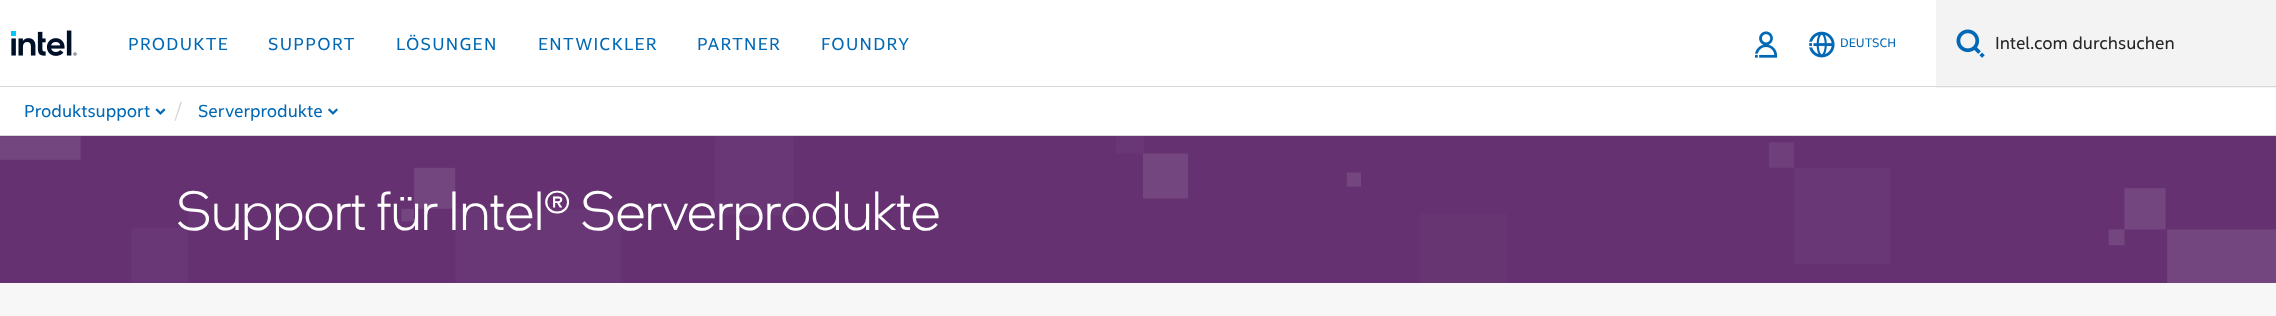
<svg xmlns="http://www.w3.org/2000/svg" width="2276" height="316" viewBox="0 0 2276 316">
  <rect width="100%" height="100%" fill="rgb(255,255,255)"/>
  <rect x="0" y="86" width="1936" height="1" fill="rgb(215,215,215)"/>
  <image x="11" y="30" width="66" height="26" href="pic1.png"/>
  <g font-family="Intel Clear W" font-size="17.5" letter-spacing="1.25" fill="rgb(0,104,181)">
    <text x="128" y="50">PRODUKTE</text>
    <text x="268" y="50">SUPPORT</text>
    <text x="396" y="50">LÖSUNGEN</text>
    <text x="538" y="50">ENTWICKLER</text>
    <text x="697" y="50">PARTNER</text>
    <text x="821" y="50">FOUNDRY</text>
  </g>
  <image x="1755" y="31" width="23" height="27" href="pic2.png"/>
  <image x="1809" y="31" width="26" height="27" href="pic3.png"/>
  <text x="1840" y="47" font-family="Intel Clear W" font-size="12.5" fill="rgb(0,104,181)">DEUTSCH</text>
  <rect x="1936" y="0" width="340" height="88" fill="rgb(243,243,243)"/>
  <rect x="1936" y="86" width="340" height="1" fill="rgb(215,215,215)"/>
  <image x="1956" y="29" width="29" height="29" href="pic4.png"/>
  <text x="1995" y="49" font-family="Intel Clear W" font-size="17.5" fill="rgb(37,37,37)">Intel.com durchsuchen</text>
  <rect x="0" y="135" width="2276" height="1" fill="rgb(215,215,215)"/>
  <text x="24" y="117" font-family="Intel Clear W" font-size="17.5" fill="rgb(0,104,181)">Produktsupport</text>
  <image x="155" y="108" width="11" height="7" href="pic5.png"/>
  <path d="M180.5 101.5L182 102L175.5 121L174.5 120.5Z" fill="rgb(215,215,215)"/>
  <text x="198" y="117" font-family="Intel Clear W" font-size="17.5" fill="rgb(0,104,181)">Serverprodukte</text>
  <image x="328" y="108" width="10" height="7" href="pic6.png"/>
  <rect x="0" y="283" width="2276" height="33" fill="rgb(247,247,247)"/>
  <rect x="0" y="136" width="2276" height="147" fill="rgb(101,49,113)"/>
  <image x="0" y="136" width="2276" height="147" href="pic7.png"/>
  <text x="176" y="230" font-family="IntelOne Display" font-size="55" font-weight="300" letter-spacing="-0.25" fill="rgb(255,255,255)">Support für Intel® Serverprodukte</text>
</svg>
